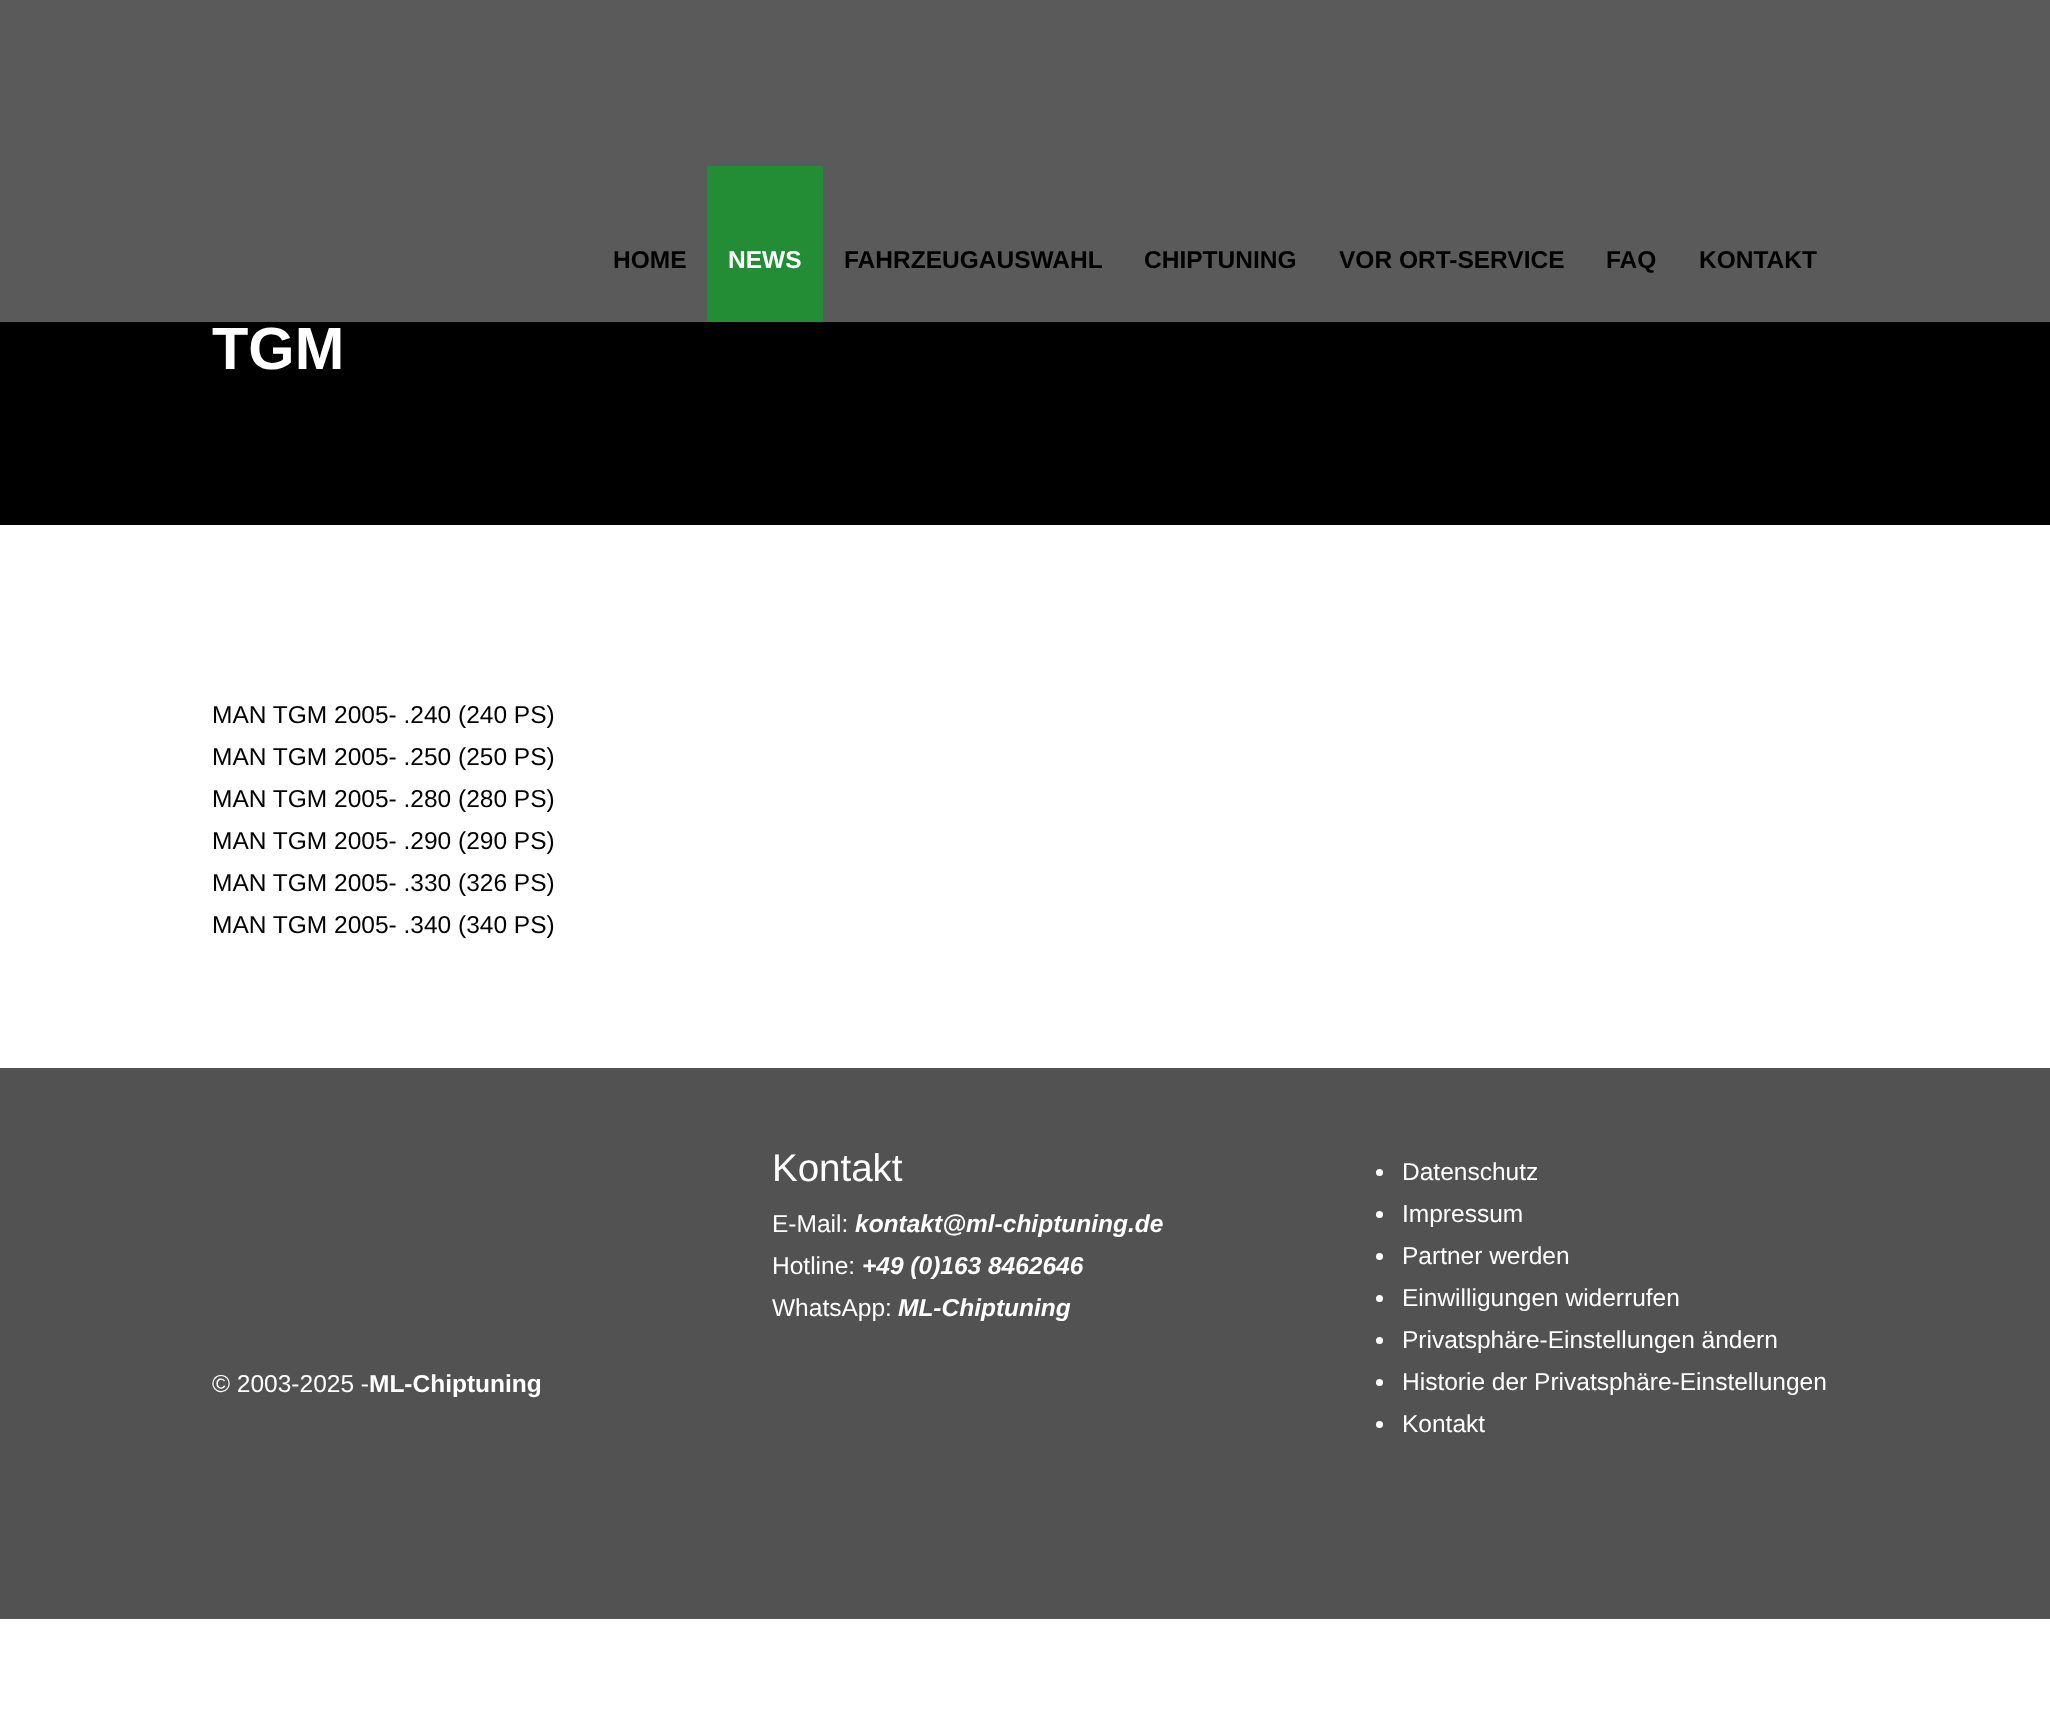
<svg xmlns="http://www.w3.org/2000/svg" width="2050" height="1713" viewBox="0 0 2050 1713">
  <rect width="100%" height="100%" fill="rgb(255,255,255)"/>
  <rect x="0" y="0" width="2050" height="322" fill="rgb(90,90,90)"/>
  <text x="613" y="268" font-family="Liberation Sans" font-size="24.5" font-weight="bold" fill="rgb(0,0,0)">HOME</text>
  <rect x="707" y="166" width="116" height="156" fill="rgb(35,141,54)"/>
  <text x="728" y="268" font-family="Liberation Sans" font-size="24.5" font-weight="bold" fill="rgb(255,255,255)">NEWS</text>
  <g font-family="Liberation Sans" font-size="24.5" font-weight="bold" fill="rgb(0,0,0)">
    <text x="844" y="268">FAHRZEUGAUSWAHL</text>
    <text x="1144" y="268">CHIPTUNING</text>
    <text x="1339" y="268">VOR ORT-SERVICE</text>
    <text x="1606" y="268">FAQ</text>
    <text x="1699" y="268">KONTAKT</text>
  </g>
  <rect x="0" y="322" width="2050" height="203" fill="rgb(0,0,0)"/>
  <text x="212" y="369" font-family="Liberation Sans" font-size="59.5" font-weight="bold" fill="rgb(255,255,255)">TGM</text>
  <g font-family="Liberation Sans" font-size="24.5" fill="rgb(0,0,0)">
    <text>
      <tspan x="212" y="723">MAN TGM 2005- .240 (240 PS)</tspan>
      <tspan x="212" y="765">MAN TGM 2005- .250 (250 PS)</tspan>
      <tspan x="212" y="807">MAN TGM 2005- .280 (280 PS)</tspan>
      <tspan x="212" y="849">MAN TGM 2005- .290 (290 PS)</tspan>
      <tspan x="212" y="891">MAN TGM 2005- .330 (326 PS)</tspan>
      <tspan x="212" y="933">MAN TGM 2005- .340 (340 PS)</tspan>
    </text>
  </g>
  <rect x="0" y="1068" width="2050" height="551" fill="rgb(82,82,82)"/>
  <text x="212" y="1392" font-family="Liberation Sans" font-size="24.5" fill="rgb(255,255,255)">© 2003-2025 -</text>
  <text x="369" y="1392" font-family="Liberation Sans" font-size="24.5" font-weight="bold" fill="rgb(255,255,255)">ML-Chiptuning</text>
  <text x="772" y="1181" font-family="Liberation Sans" font-size="38.5" fill="rgb(255,255,255)">Kontakt</text>
  <text x="772" y="1232" font-family="Liberation Sans" font-size="24.5" fill="rgb(255,255,255)">E-Mail:</text>
  <text x="855" y="1232" font-family="Liberation Sans" font-size="24.5" font-weight="bold" font-style="italic" fill="rgb(255,255,255)">kontakt@ml-chiptuning.de</text>
  <text x="772" y="1274" font-family="Liberation Sans" font-size="24.5" fill="rgb(255,255,255)">Hotline:</text>
  <text x="862" y="1274" font-family="Liberation Sans" font-size="24.5" font-weight="bold" font-style="italic" fill="rgb(255,255,255)">+49 (0)163 8462646</text>
  <text x="772" y="1316" font-family="Liberation Sans" font-size="24.5" fill="rgb(255,255,255)">WhatsApp:</text>
  <text x="898" y="1316" font-family="Liberation Sans" font-size="24.5" font-weight="bold" font-style="italic" fill="rgb(255,255,255)">ML-Chiptuning</text>
  <circle cx="1379.5" cy="1172.5" r="3.5" fill="rgb(255,255,255)"/>
  <text x="1402" y="1180" font-family="Liberation Sans" font-size="24.5" fill="rgb(255,255,255)">Datenschutz</text>
  <circle cx="1379.5" cy="1214.5" r="3.5" fill="rgb(255,255,255)"/>
  <text x="1402" y="1222" font-family="Liberation Sans" font-size="24.5" fill="rgb(255,255,255)">Impressum</text>
  <circle cx="1379.5" cy="1256.5" r="3.5" fill="rgb(255,255,255)"/>
  <text x="1402" y="1264" font-family="Liberation Sans" font-size="24.5" fill="rgb(255,255,255)">Partner werden</text>
  <circle cx="1379.5" cy="1298.5" r="3.5" fill="rgb(255,255,255)"/>
  <text x="1402" y="1306" font-family="Liberation Sans" font-size="24.5" fill="rgb(255,255,255)">Einwilligungen widerrufen</text>
  <circle cx="1379.5" cy="1340.5" r="3.5" fill="rgb(255,255,255)"/>
  <text x="1402" y="1348" font-family="Liberation Sans" font-size="24.5" fill="rgb(255,255,255)">Privatsphäre-Einstellungen ändern</text>
  <circle cx="1379.5" cy="1382.5" r="3.5" fill="rgb(255,255,255)"/>
  <text x="1402" y="1390" font-family="Liberation Sans" font-size="24.5" fill="rgb(255,255,255)">Historie der Privatsphäre-Einstellungen</text>
  <circle cx="1379.5" cy="1424.5" r="3.5" fill="rgb(255,255,255)"/>
  <text x="1402" y="1432" font-family="Liberation Sans" font-size="24.5" fill="rgb(255,255,255)">Kontakt</text>
</svg>
